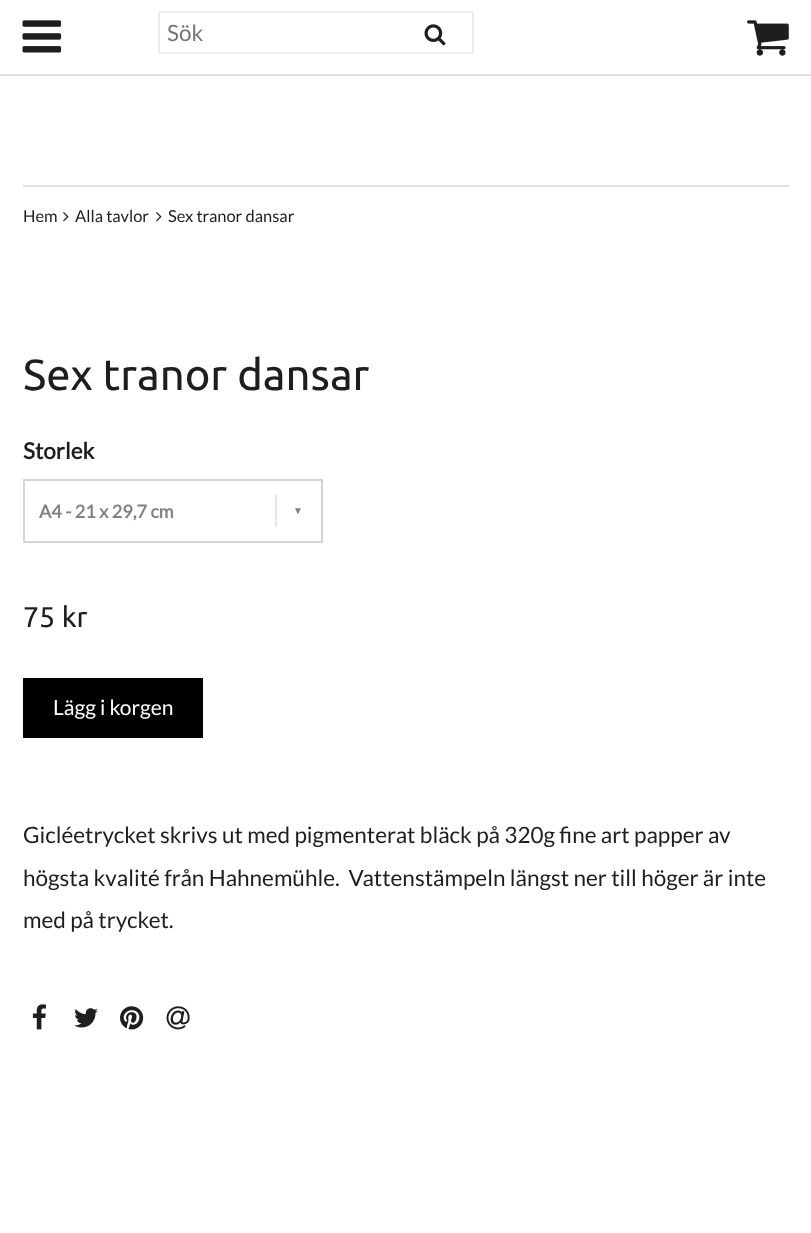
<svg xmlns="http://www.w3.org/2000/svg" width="811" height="1233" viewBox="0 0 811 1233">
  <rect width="100%" height="100%" fill="rgb(255,255,255)"/>
  <rect x="0" y="74" width="811" height="2" fill="rgb(224,224,224)"/>
  <image x="22" y="20" width="40" height="33" href="pic1.png"/>
  <rect x="159" y="12" width="314" height="41" fill="none" stroke="rgb(238,238,238)" stroke-width="2"/>
  <text x="167" y="41" font-family="Lato" font-size="22.5" fill="rgb(117,117,117)">Sök</text>
  <image x="424" y="24" width="22" height="22" href="pic2.png"/>
  <image x="747" y="20" width="42" height="36" href="pic3.png"/>
  <rect x="23" y="185" width="766" height="2" fill="rgb(224,224,224)"/>
  <text x="23" y="222" font-family="Lato" font-size="16.5" fill="rgb(30,30,30)">Hem</text>
  <image x="63" y="212" width="6" height="10" href="pic4.png"/>
  <text x="75" y="222" font-family="Lato" font-size="16.5" fill="rgb(30,30,30)">Alla tavlor</text>
  <image x="156" y="212" width="6" height="10" href="pic4.png"/>
  <text x="168" y="222" font-family="Lato" font-size="16.5" fill="rgb(30,30,30)">Sex tranor dansar</text>
  <text x="23" y="390" font-family="Ubuntu" font-size="43.5" fill="rgb(30,30,30)">Sex tranor dansar</text>
  <text x="23" y="459" font-family="Lato" font-size="22.5" font-weight="bold" fill="rgb(30,30,30)">Storlek</text>
  <rect x="24" y="480" width="298" height="62" fill="none" stroke="rgb(212,212,212)" stroke-width="2"/>
  <text x="39" y="518" font-family="Lato" font-size="18" font-weight="bold" fill="rgb(128,128,128)">A4 - 21 x 29,7 cm</text>
  <rect x="275" y="495" width="2" height="32" fill="rgb(229,229,229)"/>
  <text x="293" y="514" font-family="Liberation Sans" font-size="10" font-weight="bold" fill="rgb(128,128,128)">▼</text>
  <text x="23" y="627" font-family="Ubuntu" font-size="28.5" fill="rgb(30,30,30)">75 kr</text>
  <rect x="23" y="678" width="180" height="60" fill="rgb(0,0,0)"/>
  <text x="53" y="715" font-family="Lato" font-size="21" fill="rgb(255,255,255)">Lägg i korgen</text>
  <g font-family="Lato" font-size="22.5" fill="rgb(30,30,30)">
    <text xml:space="preserve"><tspan x="23" y="843">Gicléetrycket skrivs ut med pigmenterat bläck på 320g fine art papper av</tspan><tspan x="23" y="886">högsta kvalité från Hahnemühle.  Vattenstämpeln längst ner till höger är inte</tspan><tspan x="23" y="928">med på trycket.</tspan></text>
  </g>
  <image x="32" y="1004" width="14" height="26" href="pic5.png"/>
  <image x="74" y="1008" width="24" height="20" href="pic6.png"/>
  <image x="120" y="1006" width="24" height="24" href="pic7.png"/>
  <image x="166" y="1006" width="24" height="24" href="pic8.png"/>
</svg>
